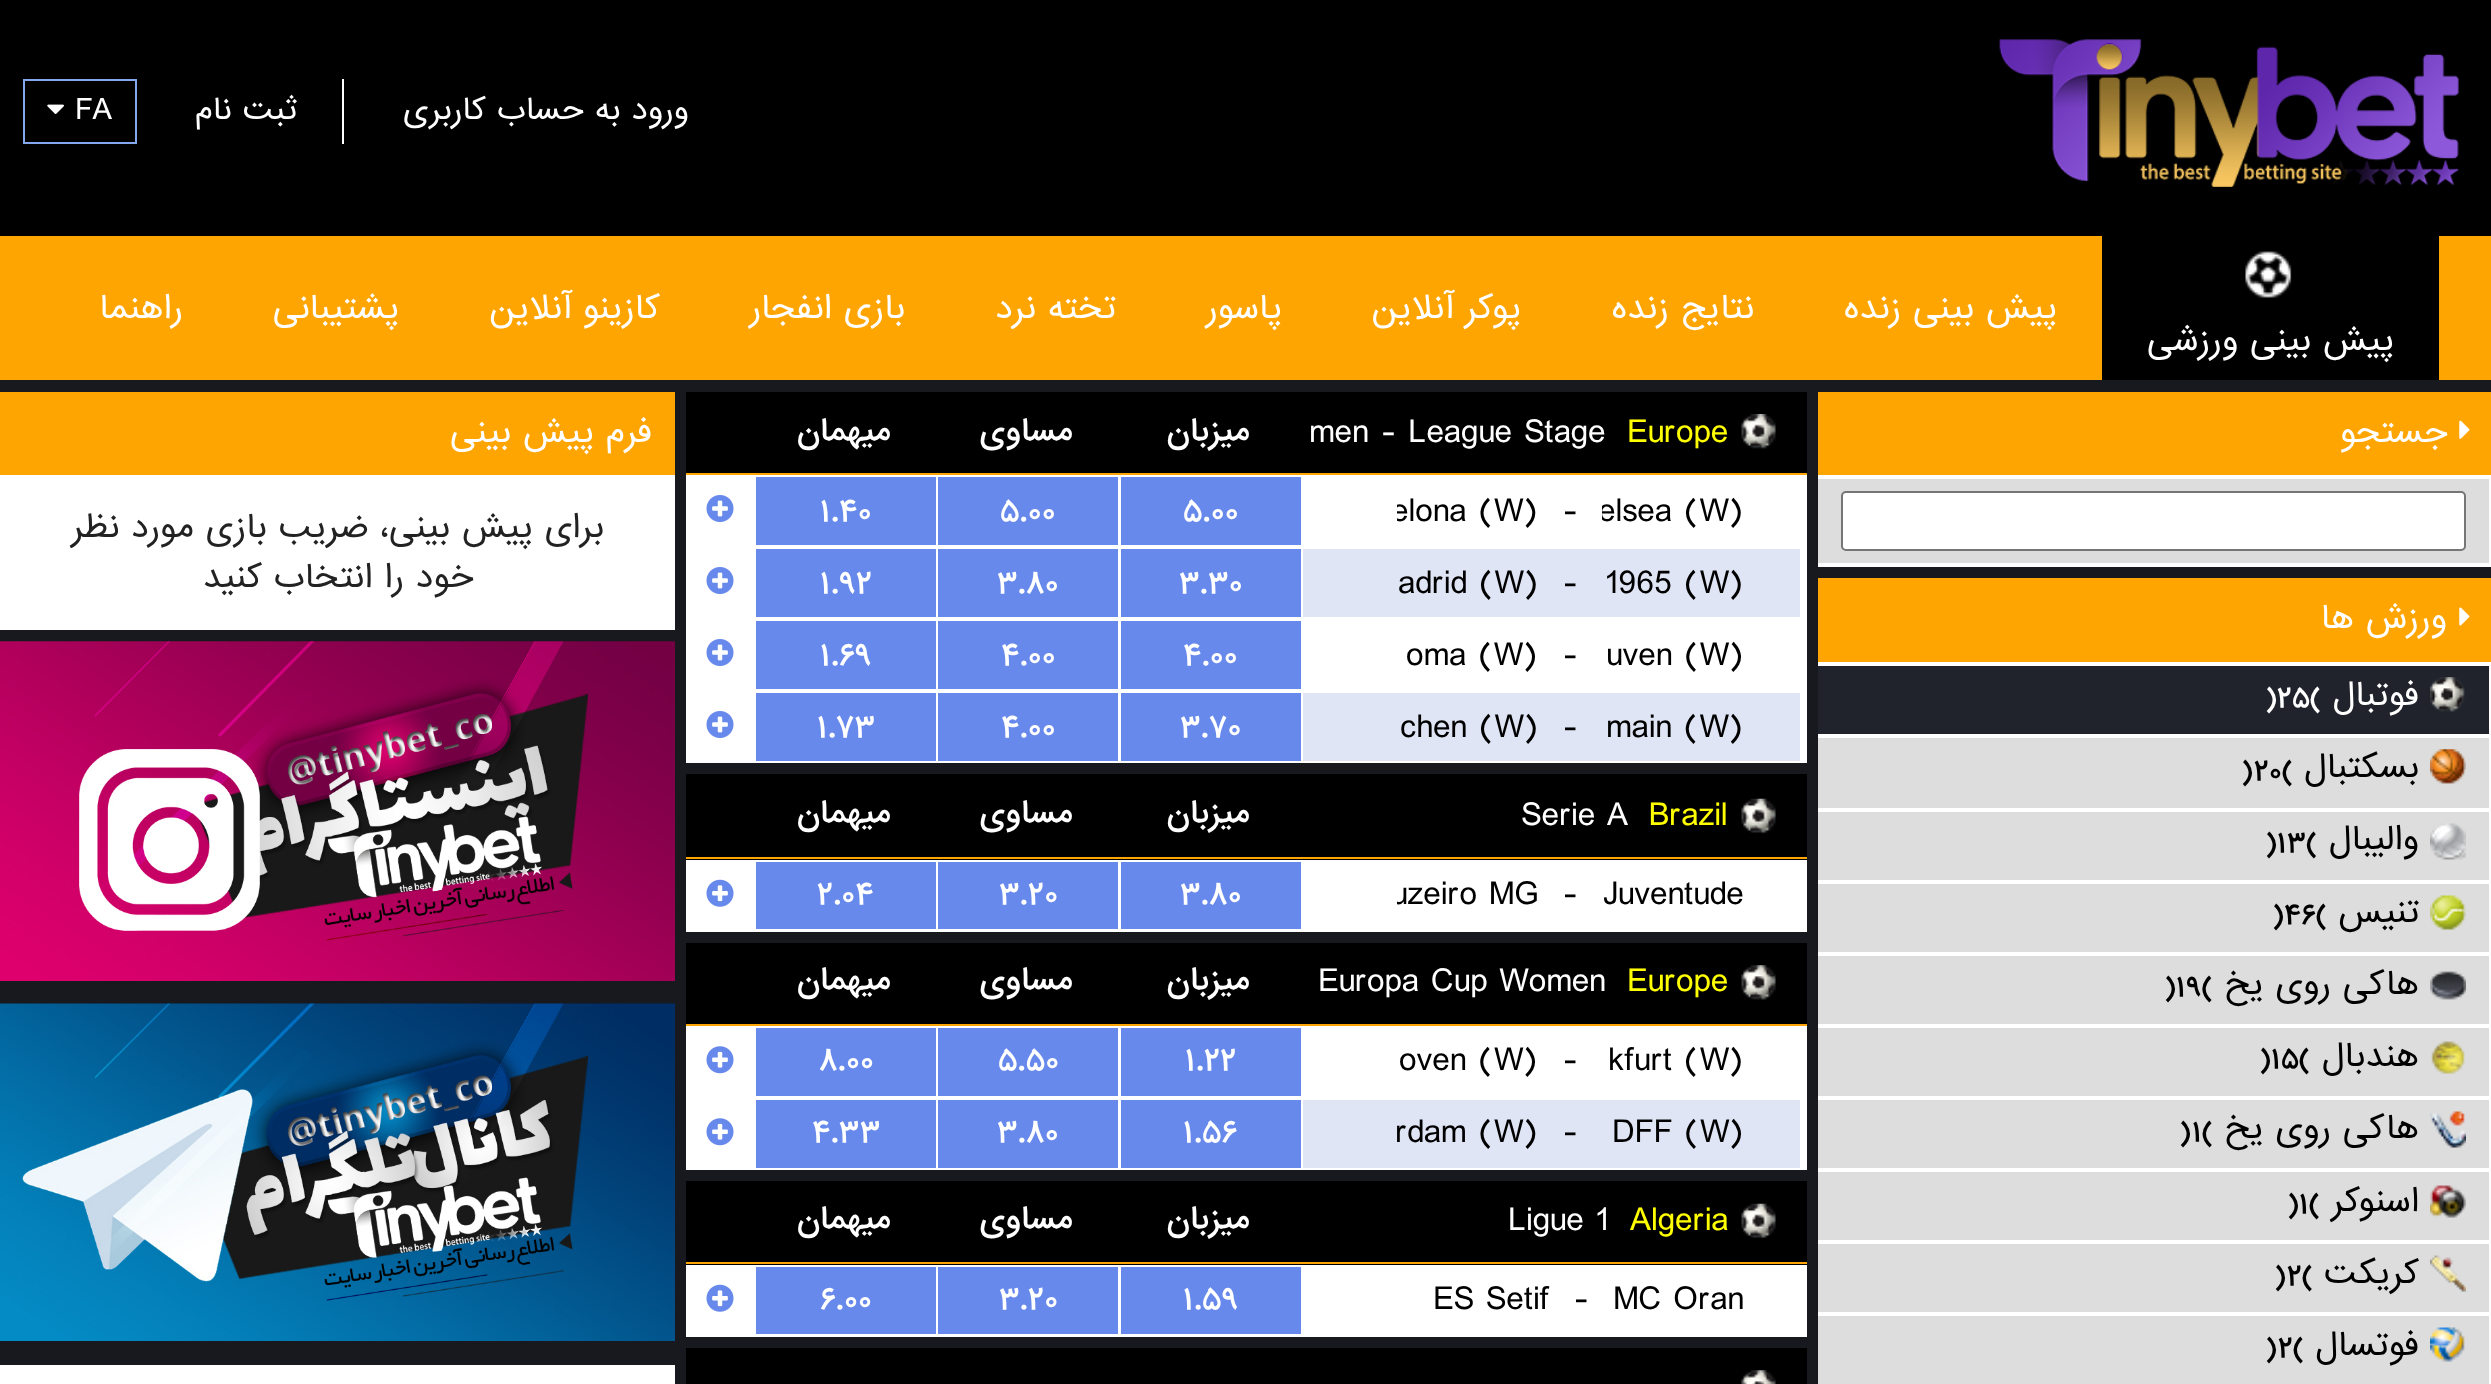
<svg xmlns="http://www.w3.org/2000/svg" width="2491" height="1384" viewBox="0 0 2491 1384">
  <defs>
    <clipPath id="clip1"><rect x="1397" y="477" width="142" height="68"/></clipPath>
    <clipPath id="clip2"><rect x="1602" y="477" width="142" height="68"/></clipPath>
    <clipPath id="clip3"><rect x="1397" y="862" width="142" height="67"/></clipPath>
  </defs>
  <rect width="100%" height="100%" fill="rgb(0,0,0)"/>
  <rect x="24" y="80" width="112" height="63" fill="none" stroke="rgb(132,167,239)" stroke-width="2"/>
  <image x="47" y="104" width="17" height="10" href="pic1.png"/>
  <text x="75" y="119" font-family="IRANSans" font-size="29.25" fill="rgb(255,255,255)">FA</text>
  <rect x="342" y="79" width="2" height="65" fill="rgb(255,255,255)"/>
  <g font-family="IRANSans" font-size="29.25" direction="rtl" fill="rgb(255,255,255)">
    <text x="297" y="119">ثبت نام</text>
    <text x="689" y="119">ورود به حساب کاربری</text>
  </g>
  <image x="1999" y="39" width="460" height="148" href="pic2.png"/>
  <rect x="0" y="236" width="2491" height="144" fill="rgb(255,165,2)"/>
  <g font-family="IRANSans" font-size="31.5" direction="rtl" fill="rgb(255,255,255)">
    <text x="183" y="318">راهنما</text>
    <text x="399" y="318">پشتیبانی</text>
    <text x="660" y="318">کازینو آنلاین</text>
    <text x="905" y="318">بازی انفجار</text>
    <text x="1116" y="318">تخته نرد</text>
    <text x="1282" y="318">پاسور</text>
    <text x="1521" y="318">پوکر آنلاین</text>
    <text x="1754" y="318">نتایج زنده</text>
    <text x="2057" y="318">پیش بینی زنده</text>
  </g>
  <rect x="2102" y="236" width="337" height="144" fill="rgb(0,0,0)"/>
  <image x="2245" y="251" width="47" height="47" href="pic3.png"/>
  <text x="2394" y="350" font-family="IRANSans" font-size="31.5" direction="rtl" fill="rgb(255,255,255)">پیش بینی ورزشی</text>
  <rect x="0" y="380" width="2491" height="1004" fill="rgb(23,25,31)"/>
  <rect x="0" y="392" width="675" height="83" fill="rgb(255,165,2)"/>
  <text x="652" y="442" font-family="IRANSans" font-size="31.5" direction="rtl" fill="rgb(255,255,255)">فرم پیش بینی</text>
  <rect x="0" y="475" width="675" height="155" fill="rgb(255,255,255)"/>
  <g font-family="IRANSans" font-size="31.5" direction="rtl" fill="rgb(34,34,34)">
    <text x="604" y="537">برای پیش بینی، ضریب بازی مورد نظر</text>
    <text x="473" y="587">خود را انتخاب کنید</text>
  </g>
  <image x="0" y="641" width="675" height="340" href="pic4.png"/>
  <image x="0" y="1003" width="675" height="338" href="pic5.png"/>
  <rect x="0" y="1365" width="675" height="19" fill="rgb(255,255,255)"/>
  <rect x="686" y="392" width="1121" height="81" fill="rgb(0,0,0)"/>
  <rect x="686" y="473" width="1121" height="2" fill="rgb(255,165,2)"/>
  <g font-family="IRANSans" font-size="29.25" font-weight="500" direction="rtl" fill="rgb(255,255,255)">
    <text x="891" y="440">میهمان</text>
    <text x="1073" y="440">مساوی</text>
    <text x="1250" y="440">میزبان</text>
  </g>
  <image x="1741" y="414" width="35" height="35" href="pic6.png"/>
  <text x="1309" y="442" font-family="IRANSans" font-size="31.5" fill="rgb(255,255,255)">men - League Stage</text>
  <text x="1627" y="442" font-family="IRANSans" font-size="31.5" fill="rgb(255,255,0)">Europe</text>
  <rect x="686" y="475" width="1121" height="288" fill="rgb(255,255,255)"/>
  <image x="706" y="495" width="28" height="27" href="pic7.png"/>
  <rect x="756" y="477" width="180" height="68" fill="rgb(103,137,236)"/>
  <text x="820" y="521" font-family="IRANSans" font-size="29.25" font-weight="500" fill="rgb(255,255,255)">۱.۴۰</text>
  <rect x="938" y="477" width="180" height="68" fill="rgb(103,137,236)"/>
  <text x="1000" y="521" font-family="IRANSans" font-size="29.25" font-weight="500" fill="rgb(255,255,255)">۵.۰۰</text>
  <rect x="1121" y="477" width="180" height="68" fill="rgb(103,137,236)"/>
  <text x="1183" y="521" font-family="IRANSans" font-size="29.25" font-weight="500" fill="rgb(255,255,255)">۵.۰۰</text>
  <g clip-path="url(#clip1)">
    <text x="1391" y="521" font-family="IRANSans" font-size="31.5" fill="rgb(0,0,0)">elona (W)</text>
  </g>
  <text x="1562" y="521" font-family="IRANSans" font-size="31.5" fill="rgb(0,0,0)">-</text>
  <g clip-path="url(#clip2)">
    <text x="1598" y="521" font-family="IRANSans" font-size="31.5" fill="rgb(0,0,0)">elsea (W)</text>
  </g>
  <image x="706" y="567" width="28" height="27" href="pic7.png"/>
  <rect x="756" y="549" width="180" height="68" fill="rgb(103,137,236)"/>
  <text x="820" y="593" font-family="IRANSans" font-size="29.25" font-weight="500" fill="rgb(255,255,255)">۱.۹۲</text>
  <rect x="938" y="549" width="180" height="68" fill="rgb(103,137,236)"/>
  <text x="997" y="593" font-family="IRANSans" font-size="29.25" font-weight="500" fill="rgb(255,255,255)">۳.۸۰</text>
  <rect x="1121" y="549" width="180" height="68" fill="rgb(103,137,236)"/>
  <text x="1179" y="593" font-family="IRANSans" font-size="29.25" font-weight="500" fill="rgb(255,255,255)">۳.۳۰</text>
  <rect x="1303" y="549" width="497" height="68" fill="rgb(224,229,245)"/>
  <g font-family="IRANSans" font-size="31.5" fill="rgb(0,0,0)">
    <text x="1398" y="593">adrid (W)</text>
    <text x="1562" y="593">-</text>
    <text x="1605" y="593">1965 (W)</text>
  </g>
  <image x="706" y="639" width="28" height="27" href="pic7.png"/>
  <rect x="756" y="621" width="180" height="68" fill="rgb(103,137,236)"/>
  <text x="820" y="665" font-family="IRANSans" font-size="29.25" font-weight="500" fill="rgb(255,255,255)">۱.۶۹</text>
  <rect x="938" y="621" width="180" height="68" fill="rgb(103,137,236)"/>
  <text x="1001" y="665" font-family="IRANSans" font-size="29.25" font-weight="500" fill="rgb(255,255,255)">۴.۰۰</text>
  <rect x="1121" y="621" width="180" height="68" fill="rgb(103,137,236)"/>
  <text x="1183" y="665" font-family="IRANSans" font-size="29.25" font-weight="500" fill="rgb(255,255,255)">۴.۰۰</text>
  <g font-family="IRANSans" font-size="31.5" fill="rgb(0,0,0)">
    <text x="1406" y="665">oma (W)</text>
    <text x="1562" y="665">-</text>
    <text x="1606" y="665">uven (W)</text>
  </g>
  <image x="706" y="711" width="28" height="27" href="pic7.png"/>
  <rect x="756" y="693" width="180" height="68" fill="rgb(103,137,236)"/>
  <text x="817" y="737" font-family="IRANSans" font-size="29.25" font-weight="500" fill="rgb(255,255,255)">۱.۷۳</text>
  <rect x="938" y="693" width="180" height="68" fill="rgb(103,137,236)"/>
  <text x="1001" y="737" font-family="IRANSans" font-size="29.25" font-weight="500" fill="rgb(255,255,255)">۴.۰۰</text>
  <rect x="1121" y="693" width="180" height="68" fill="rgb(103,137,236)"/>
  <text x="1180" y="737" font-family="IRANSans" font-size="29.25" font-weight="500" fill="rgb(255,255,255)">۳.۷۰</text>
  <rect x="1303" y="693" width="497" height="68" fill="rgb(224,229,245)"/>
  <g font-family="IRANSans" font-size="31.5" fill="rgb(0,0,0)">
    <text x="1400" y="737">chen (W)</text>
    <text x="1562" y="737">-</text>
    <text x="1606" y="737">main (W)</text>
  </g>
  <rect x="686" y="774" width="1121" height="86" fill="rgb(0,0,0)"/>
  <rect x="686" y="857" width="1121" height="2" fill="rgb(255,165,2)"/>
  <g font-family="IRANSans" font-size="29.25" font-weight="500" direction="rtl" fill="rgb(255,255,255)">
    <text x="891" y="822">میهمان</text>
    <text x="1073" y="822">مساوی</text>
    <text x="1250" y="822">میزبان</text>
  </g>
  <image x="1741" y="798" width="35" height="36" href="pic8.png"/>
  <text x="1521" y="825" font-family="IRANSans" font-size="31.5" fill="rgb(255,255,255)">Serie A</text>
  <text x="1649" y="825" font-family="IRANSans" font-size="31.5" fill="rgb(255,255,0)">Brazil</text>
  <rect x="686" y="860" width="1121" height="72" fill="rgb(255,255,255)"/>
  <image x="706" y="879" width="28" height="28" href="pic9.png"/>
  <rect x="756" y="862" width="180" height="67" fill="rgb(103,137,236)"/>
  <text x="817" y="904" font-family="IRANSans" font-size="29.25" font-weight="500" fill="rgb(255,255,255)">۲.۰۴</text>
  <rect x="938" y="862" width="180" height="67" fill="rgb(103,137,236)"/>
  <text x="999" y="904" font-family="IRANSans" font-size="29.25" font-weight="500" fill="rgb(255,255,255)">۳.۲۰</text>
  <rect x="1121" y="862" width="180" height="67" fill="rgb(103,137,236)"/>
  <text x="1180" y="904" font-family="IRANSans" font-size="29.25" font-weight="500" fill="rgb(255,255,255)">۳.۸۰</text>
  <g clip-path="url(#clip3)">
    <text x="1391" y="904" font-family="IRANSans" font-size="31.5" fill="rgb(0,0,0)">uzeiro MG</text>
  </g>
  <g font-family="IRANSans" font-size="31.5" fill="rgb(0,0,0)">
    <text x="1562" y="904">-</text>
    <text x="1603" y="904">Juventude</text>
  </g>
  <rect x="686" y="943" width="1121" height="81" fill="rgb(0,0,0)"/>
  <rect x="686" y="1024" width="1121" height="2" fill="rgb(255,165,2)"/>
  <g font-family="IRANSans" font-size="29.25" font-weight="500" direction="rtl" fill="rgb(255,255,255)">
    <text x="891" y="989">میهمان</text>
    <text x="1073" y="989">مساوی</text>
    <text x="1250" y="989">میزبان</text>
  </g>
  <image x="1741" y="965" width="35" height="35" href="pic10.png"/>
  <text x="1318" y="991" font-family="IRANSans" font-size="31.5" fill="rgb(255,255,255)">Europa Cup Women</text>
  <text x="1627" y="991" font-family="IRANSans" font-size="31.5" fill="rgb(255,255,0)">Europe</text>
  <rect x="686" y="1026" width="1121" height="144" fill="rgb(255,255,255)"/>
  <image x="706" y="1046" width="28" height="28" href="pic11.png"/>
  <rect x="756" y="1028" width="180" height="68" fill="rgb(103,137,236)"/>
  <text x="819" y="1070" font-family="IRANSans" font-size="29.25" font-weight="500" fill="rgb(255,255,255)">۸.۰۰</text>
  <rect x="938" y="1028" width="180" height="68" fill="rgb(103,137,236)"/>
  <text x="998" y="1070" font-family="IRANSans" font-size="29.25" font-weight="500" fill="rgb(255,255,255)">۵.۵۰</text>
  <rect x="1121" y="1028" width="180" height="68" fill="rgb(103,137,236)"/>
  <text x="1185" y="1070" font-family="IRANSans" font-size="29.25" font-weight="500" fill="rgb(255,255,255)">۱.۲۲</text>
  <g font-family="IRANSans" font-size="31.5" fill="rgb(0,0,0)">
    <text x="1399" y="1070">oven (W)</text>
    <text x="1562" y="1070">-</text>
    <text x="1608" y="1070">kfurt (W)</text>
  </g>
  <image x="706" y="1118" width="28" height="28" href="pic11.png"/>
  <rect x="756" y="1100" width="180" height="68" fill="rgb(103,137,236)"/>
  <text x="812" y="1142" font-family="IRANSans" font-size="29.25" font-weight="500" fill="rgb(255,255,255)">۴.۳۳</text>
  <rect x="938" y="1100" width="180" height="68" fill="rgb(103,137,236)"/>
  <text x="997" y="1142" font-family="IRANSans" font-size="29.25" font-weight="500" fill="rgb(255,255,255)">۳.۸۰</text>
  <rect x="1121" y="1100" width="180" height="68" fill="rgb(103,137,236)"/>
  <text x="1183" y="1142" font-family="IRANSans" font-size="29.25" font-weight="500" fill="rgb(255,255,255)">۱.۵۶</text>
  <rect x="1303" y="1100" width="497" height="68" fill="rgb(224,229,245)"/>
  <g font-family="IRANSans" font-size="31.5" fill="rgb(0,0,0)">
    <text x="1395" y="1142">rdam (W)</text>
    <text x="1562" y="1142">-</text>
    <text x="1612" y="1142">DFF (W)</text>
  </g>
  <rect x="686" y="1181" width="1121" height="84" fill="rgb(0,0,0)"/>
  <rect x="686" y="1262" width="1121" height="2" fill="rgb(255,165,2)"/>
  <g font-family="IRANSans" font-size="29.25" font-weight="500" direction="rtl" fill="rgb(255,255,255)">
    <text x="891" y="1228">میهمان</text>
    <text x="1073" y="1228">مساوی</text>
    <text x="1250" y="1228">میزبان</text>
  </g>
  <image x="1741" y="1203" width="35" height="36" href="pic8.png"/>
  <text x="1508" y="1230" font-family="IRANSans" font-size="31.5" fill="rgb(255,255,255)">Ligue 1</text>
  <text x="1630" y="1230" font-family="IRANSans" font-size="31.5" fill="rgb(255,255,0)">Algeria</text>
  <rect x="686" y="1265" width="1121" height="72" fill="rgb(255,255,255)"/>
  <image x="706" y="1284" width="28" height="28" href="pic9.png"/>
  <rect x="756" y="1267" width="180" height="67" fill="rgb(103,137,236)"/>
  <text x="820" y="1309" font-family="IRANSans" font-size="29.25" font-weight="500" fill="rgb(255,255,255)">۶.۰۰</text>
  <rect x="938" y="1267" width="180" height="67" fill="rgb(103,137,236)"/>
  <text x="999" y="1309" font-family="IRANSans" font-size="29.25" font-weight="500" fill="rgb(255,255,255)">۳.۲۰</text>
  <rect x="1121" y="1267" width="180" height="67" fill="rgb(103,137,236)"/>
  <text x="1183" y="1309" font-family="IRANSans" font-size="29.25" font-weight="500" fill="rgb(255,255,255)">۱.۵۹</text>
  <g font-family="IRANSans" font-size="31.5" fill="rgb(0,0,0)">
    <text x="1433" y="1309">ES Setif</text>
    <text x="1573" y="1309">-</text>
    <text x="1613" y="1309">MC Oran</text>
  </g>
  <rect x="686" y="1348" width="1121" height="36" fill="rgb(0,0,0)"/>
  <image x="1741" y="1370" width="35" height="14" href="pic12.png"/>
  <rect x="1818" y="392" width="673" height="83" fill="rgb(255,165,2)"/>
  <text x="2447" y="442" font-family="IRANSans" font-size="31.5" direction="rtl" fill="rgb(255,255,255)">جستجو</text>
  <image x="2459" y="420" width="11" height="19" href="pic13.png"/>
  <rect x="1818" y="475" width="673" height="92" fill="rgb(255,255,255)"/>
  <rect x="1818" y="479" width="671" height="84" fill="rgb(221,221,221)"/>
  <rect x="1842" y="492" width="623" height="58" rx="4" fill="rgb(255,255,255)" stroke="rgb(118,118,118)" stroke-width="2"/>
  <rect x="1818" y="578" width="673" height="84" fill="rgb(255,165,2)"/>
  <text x="2447" y="628" font-family="IRANSans" font-size="31.5" direction="rtl" fill="rgb(255,255,255)">ورزش ها</text>
  <image x="2459" y="607" width="11" height="19" href="pic14.png"/>
  <rect x="1818" y="662" width="673" height="722" fill="rgb(255,255,255)"/>
  <rect x="1818" y="666" width="671" height="68" fill="rgb(32,35,43)"/>
  <g font-family="IRANSans" font-size="27" font-weight="500" fill="rgb(255,255,255)">
    <text x="2266" y="707">)</text>
    <text x="2277" y="707">۲۵(</text>
  </g>
  <text x="2419" y="705" font-family="IRANSans" font-size="31.5" direction="rtl" fill="rgb(255,255,255)">فوتبال</text>
  <image x="2430" y="677" width="35" height="35" href="pic15.png"/>
  <rect x="1818" y="738" width="671" height="70" fill="rgb(221,221,221)"/>
  <g font-family="IRANSans" font-size="27" font-weight="500" fill="rgb(0,0,0)">
    <text x="2242" y="780">)</text>
    <text x="2254" y="780">۲۰(</text>
  </g>
  <text x="2419" y="777" font-family="IRANSans" font-size="31.5" direction="rtl" fill="rgb(0,0,0)">بسکتبال</text>
  <image x="2430" y="749" width="36" height="35" href="pic16.png"/>
  <rect x="1818" y="812" width="671" height="68" fill="rgb(221,221,221)"/>
  <g font-family="IRANSans" font-size="27" font-weight="500" fill="rgb(0,0,0)">
    <text x="2266" y="852">)</text>
    <text x="2277" y="852">۱۳(</text>
  </g>
  <text x="2419" y="849" font-family="IRANSans" font-size="31.5" direction="rtl" fill="rgb(0,0,0)">والیبال</text>
  <image x="2430" y="823" width="36" height="37" href="pic17.png"/>
  <rect x="1818" y="884" width="671" height="68" fill="rgb(221,221,221)"/>
  <g font-family="IRANSans" font-size="27" font-weight="500" fill="rgb(0,0,0)">
    <text x="2273" y="924">)</text>
    <text x="2284" y="924">۴۶(</text>
  </g>
  <text x="2419" y="922" font-family="IRANSans" font-size="31.5" direction="rtl" fill="rgb(0,0,0)">تنیس</text>
  <image x="2430" y="895" width="36" height="35" href="pic18.png"/>
  <rect x="1818" y="956" width="671" height="68" fill="rgb(221,221,221)"/>
  <g font-family="IRANSans" font-size="27" font-weight="500" fill="rgb(0,0,0)">
    <text x="2165" y="996">)</text>
    <text x="2176" y="996">۱۹(</text>
  </g>
  <text x="2419" y="994" font-family="IRANSans" font-size="31.5" direction="rtl" fill="rgb(0,0,0)">هاکی روی یخ</text>
  <image x="2430" y="971" width="36" height="29" href="pic19.png"/>
  <rect x="1818" y="1028" width="671" height="68" fill="rgb(221,221,221)"/>
  <g font-family="IRANSans" font-size="27" font-weight="500" fill="rgb(0,0,0)">
    <text x="2260" y="1068">)</text>
    <text x="2271" y="1068">۱۵(</text>
  </g>
  <text x="2419" y="1066" font-family="IRANSans" font-size="31.5" direction="rtl" fill="rgb(0,0,0)">هندبال</text>
  <image x="2431" y="1041" width="34" height="33" href="pic20.png"/>
  <rect x="1818" y="1100" width="671" height="68" fill="rgb(221,221,221)"/>
  <g font-family="IRANSans" font-size="27" font-weight="500" fill="rgb(0,0,0)">
    <text x="2180" y="1141">)</text>
    <text x="2192" y="1141">۱(</text>
  </g>
  <text x="2419" y="1138" font-family="IRANSans" font-size="31.5" direction="rtl" fill="rgb(0,0,0)">هاکی روی یخ</text>
  <image x="2430" y="1111" width="36" height="37" href="pic21.png"/>
  <rect x="1818" y="1172" width="671" height="68" fill="rgb(221,221,221)"/>
  <g font-family="IRANSans" font-size="27" font-weight="500" fill="rgb(0,0,0)">
    <text x="2288" y="1213">)</text>
    <text x="2299" y="1213">۱(</text>
  </g>
  <text x="2419" y="1211" font-family="IRANSans" font-size="31.5" direction="rtl" fill="rgb(0,0,0)">اسنوکر</text>
  <image x="2430" y="1185" width="36" height="33" href="pic22.png"/>
  <rect x="1818" y="1244" width="671" height="68" fill="rgb(221,221,221)"/>
  <g font-family="IRANSans" font-size="27" font-weight="500" fill="rgb(0,0,0)">
    <text x="2275" y="1285">)</text>
    <text x="2287" y="1285">۲(</text>
  </g>
  <text x="2419" y="1283" font-family="IRANSans" font-size="31.5" direction="rtl" fill="rgb(0,0,0)">کریکت</text>
  <image x="2430" y="1255" width="36" height="37" href="pic23.png"/>
  <rect x="1818" y="1316" width="671" height="68" fill="rgb(221,221,221)"/>
  <g font-family="IRANSans" font-size="27" font-weight="500" fill="rgb(0,0,0)">
    <text x="2266" y="1357">)</text>
    <text x="2278" y="1357">۲(</text>
  </g>
  <text x="2419" y="1355" font-family="IRANSans" font-size="31.5" direction="rtl" fill="rgb(0,0,0)">فوتسال</text>
  <image x="2430" y="1327" width="35" height="35" href="pic24.png"/>
</svg>
